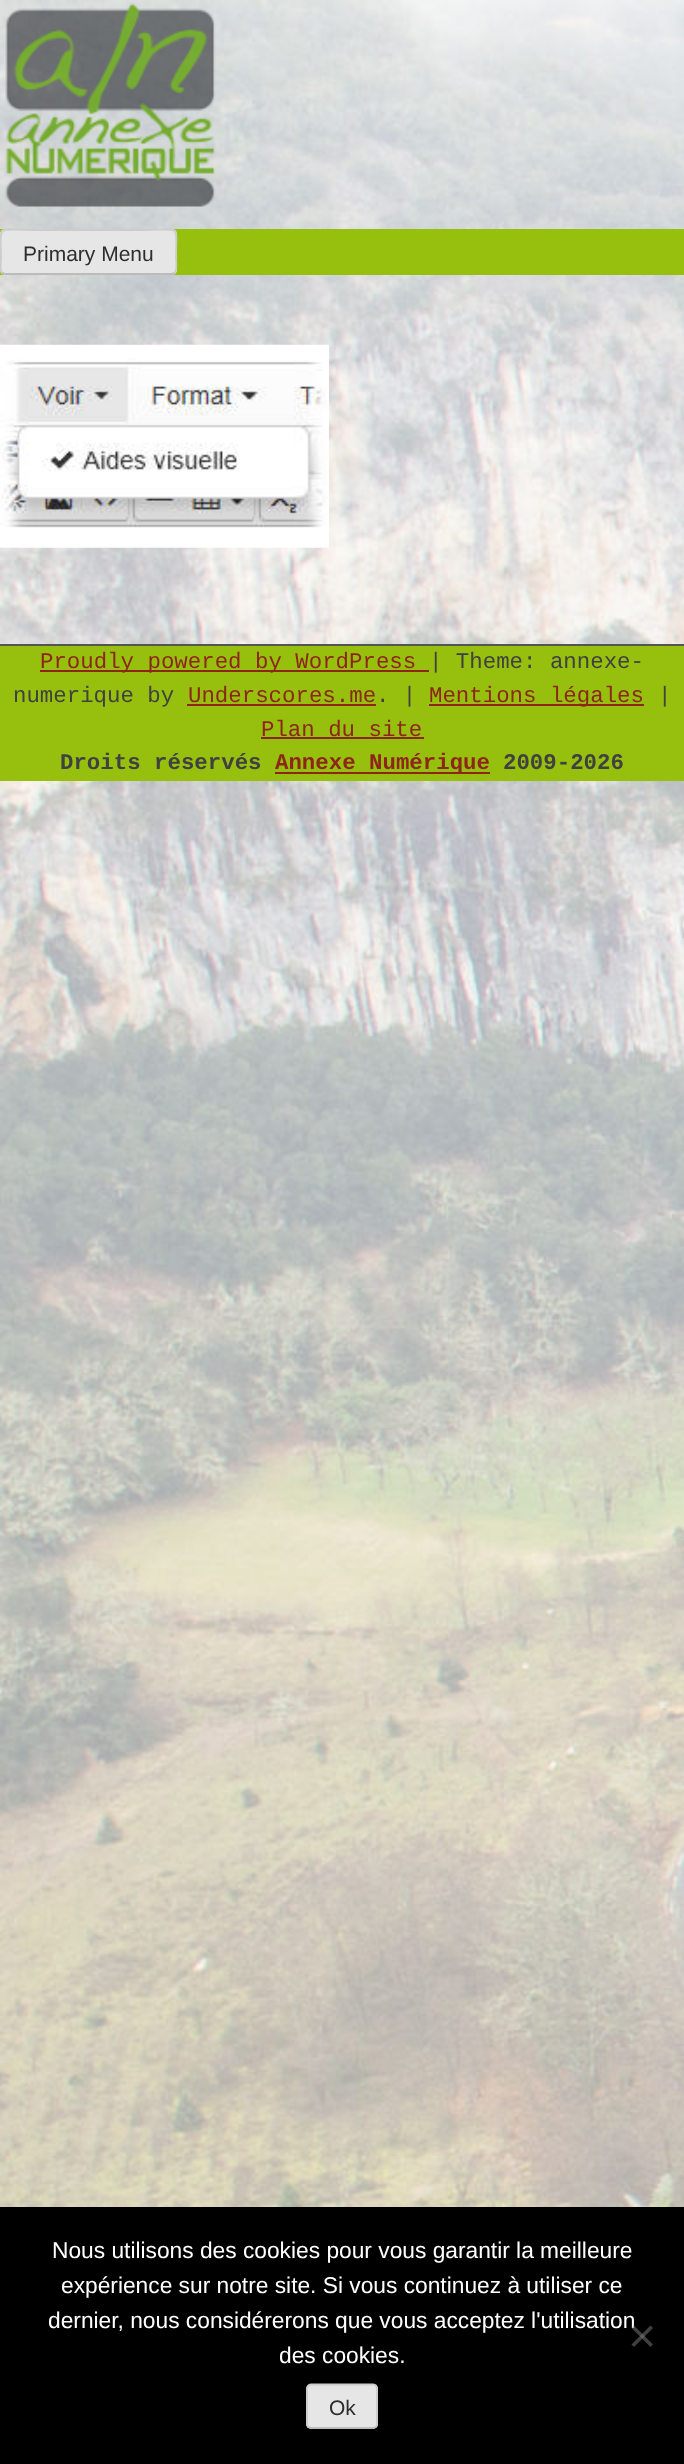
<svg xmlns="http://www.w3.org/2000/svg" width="684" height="2464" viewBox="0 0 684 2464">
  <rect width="100%" height="100%" fill="rgb(255,255,255)"/>
  <image x="0" y="0" width="684" height="2207" href="pic1.png"/>
  <image x="5" y="3" width="211" height="204" href="pic2.png"/>
  <rect x="0" y="229" width="684" height="46" fill="rgb(151,192,14)"/>
  <rect x="0" y="229" width="177" height="46" rx="5" fill="rgb(230,230,230)"/>
  <path d="M174.5 272.5C174 273.5 172.5 274 171.5 274H5.5C4 274 3 273.5 2 272.5" fill="none" stroke="rgb(187,187,187)" stroke-width="1.8"/>
  <path d="M2 272.5C-.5 270 1 261 1 258C1 223-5 230 33 230H144C182 230 176 223 176 258C176 261 177.5 270 174.5 272.5" fill="none" stroke="rgb(204,204,204)" stroke-width="1.8"/>
  <text x="23" y="261" font-family="Liberation Sans" font-size="21" fill="rgb(46,46,46)">Primary Menu</text>
  <image x="0" y="344" width="329" height="204" href="pic3.png"/>
  <rect x="0" y="646" width="684" height="135" fill="rgb(151,192,14)"/>
  <rect x="0" y="644" width="684" height="2" fill="rgb(85,85,85)"/>
  <rect x="40" y="670" width="389" height="2" fill="rgb(141,37,24)"/>
  <text x="40" y="668" font-family="Liberation Mono" font-size="22.4" fill="rgb(141,37,24)">Proudly powered by WordPress</text>
  <g font-family="Liberation Mono" font-size="22.4" fill="rgb(64,64,64)">
    <text x="429" y="668">| Theme: annexe-</text>
    <text x="13" y="702">numerique by</text>
  </g>
  <text x="188" y="702" font-family="Liberation Mono" font-size="22.4" fill="rgb(141,37,24)">Underscores.me</text>
  <rect x="187" y="704" width="189" height="2" fill="rgb(141,37,24)"/>
  <text x="376" y="702" font-family="Liberation Mono" font-size="22.4" fill="rgb(64,64,64)">. |</text>
  <rect x="429" y="704" width="215" height="2" fill="rgb(141,37,24)"/>
  <text x="429" y="702" font-family="Liberation Mono" font-size="22.4" fill="rgb(141,37,24)">Mentions légales</text>
  <text x="658" y="702" font-family="Liberation Mono" font-size="22.4" fill="rgb(64,64,64)">|</text>
  <text x="261" y="736" font-family="Liberation Mono" font-size="22.4" fill="rgb(141,37,24)">Plan du site</text>
  <rect x="261" y="737" width="163" height="2" fill="rgb(141,37,24)"/>
  <text x="60" y="769" font-family="Liberation Mono" font-size="22.4" font-weight="bold" fill="rgb(64,64,64)">Droits réservés</text>
  <rect x="275" y="772" width="215" height="2" fill="rgb(141,37,24)"/>
  <text x="275" y="769" font-family="Liberation Mono" font-size="22.4" font-weight="bold" fill="rgb(141,37,24)">Annexe Numérique</text>
  <text x="503" y="769" font-family="Liberation Mono" font-size="22.4" font-weight="bold" fill="rgb(64,64,64)">2009-2026</text>
  <rect x="0" y="2207" width="684" height="257" fill="rgb(0,0,0)"/>
  <g font-family="Liberation Sans" font-size="22.75" fill="rgb(255,255,255)">
    <text x="52" y="2258">Nous utilisons des cookies pour vous garantir la meilleure</text>
    <text x="61" y="2293">expérience sur notre site. Si vous continuez à utiliser ce</text>
    <text x="48" y="2328">dernier, nous considérerons que vous acceptez l'utilisation</text>
    <text x="279" y="2363">des cookies.</text>
  </g>
  <path d="M650.5 2325.5L653 2328L634 2347L631.5 2344.5Z" fill="rgb(64,64,64)"/>
  <path d="M631.5 2328L634 2325.5L653 2344.5L650.5 2347Z" fill="rgba(128,128,128,0.5)"/>
  <rect x="306" y="2384" width="72" height="45" rx="5" fill="rgb(230,230,230)"/>
  <path d="M376 2427L373 2428H311L308.5 2427" fill="none" stroke="rgb(187,187,187)" stroke-width="1.8"/>
  <path d="M308.5 2427C307.5 2426 307 2425 307 2424V2389C307 2387.5 307.5 2386.5 308.5 2385.5C309 2385 310.5 2384.5 311.5 2384.5H373C374 2384.5 375 2385 376 2385.5C376.5 2386.5 377 2387.5 377 2389V2424C377 2425 376.5 2426 376 2427" fill="none" stroke="rgb(204,204,204)" stroke-width="1.8"/>
  <text x="329" y="2415" font-family="Liberation Sans" font-size="21" fill="rgb(46,46,46)">Ok</text>
</svg>
